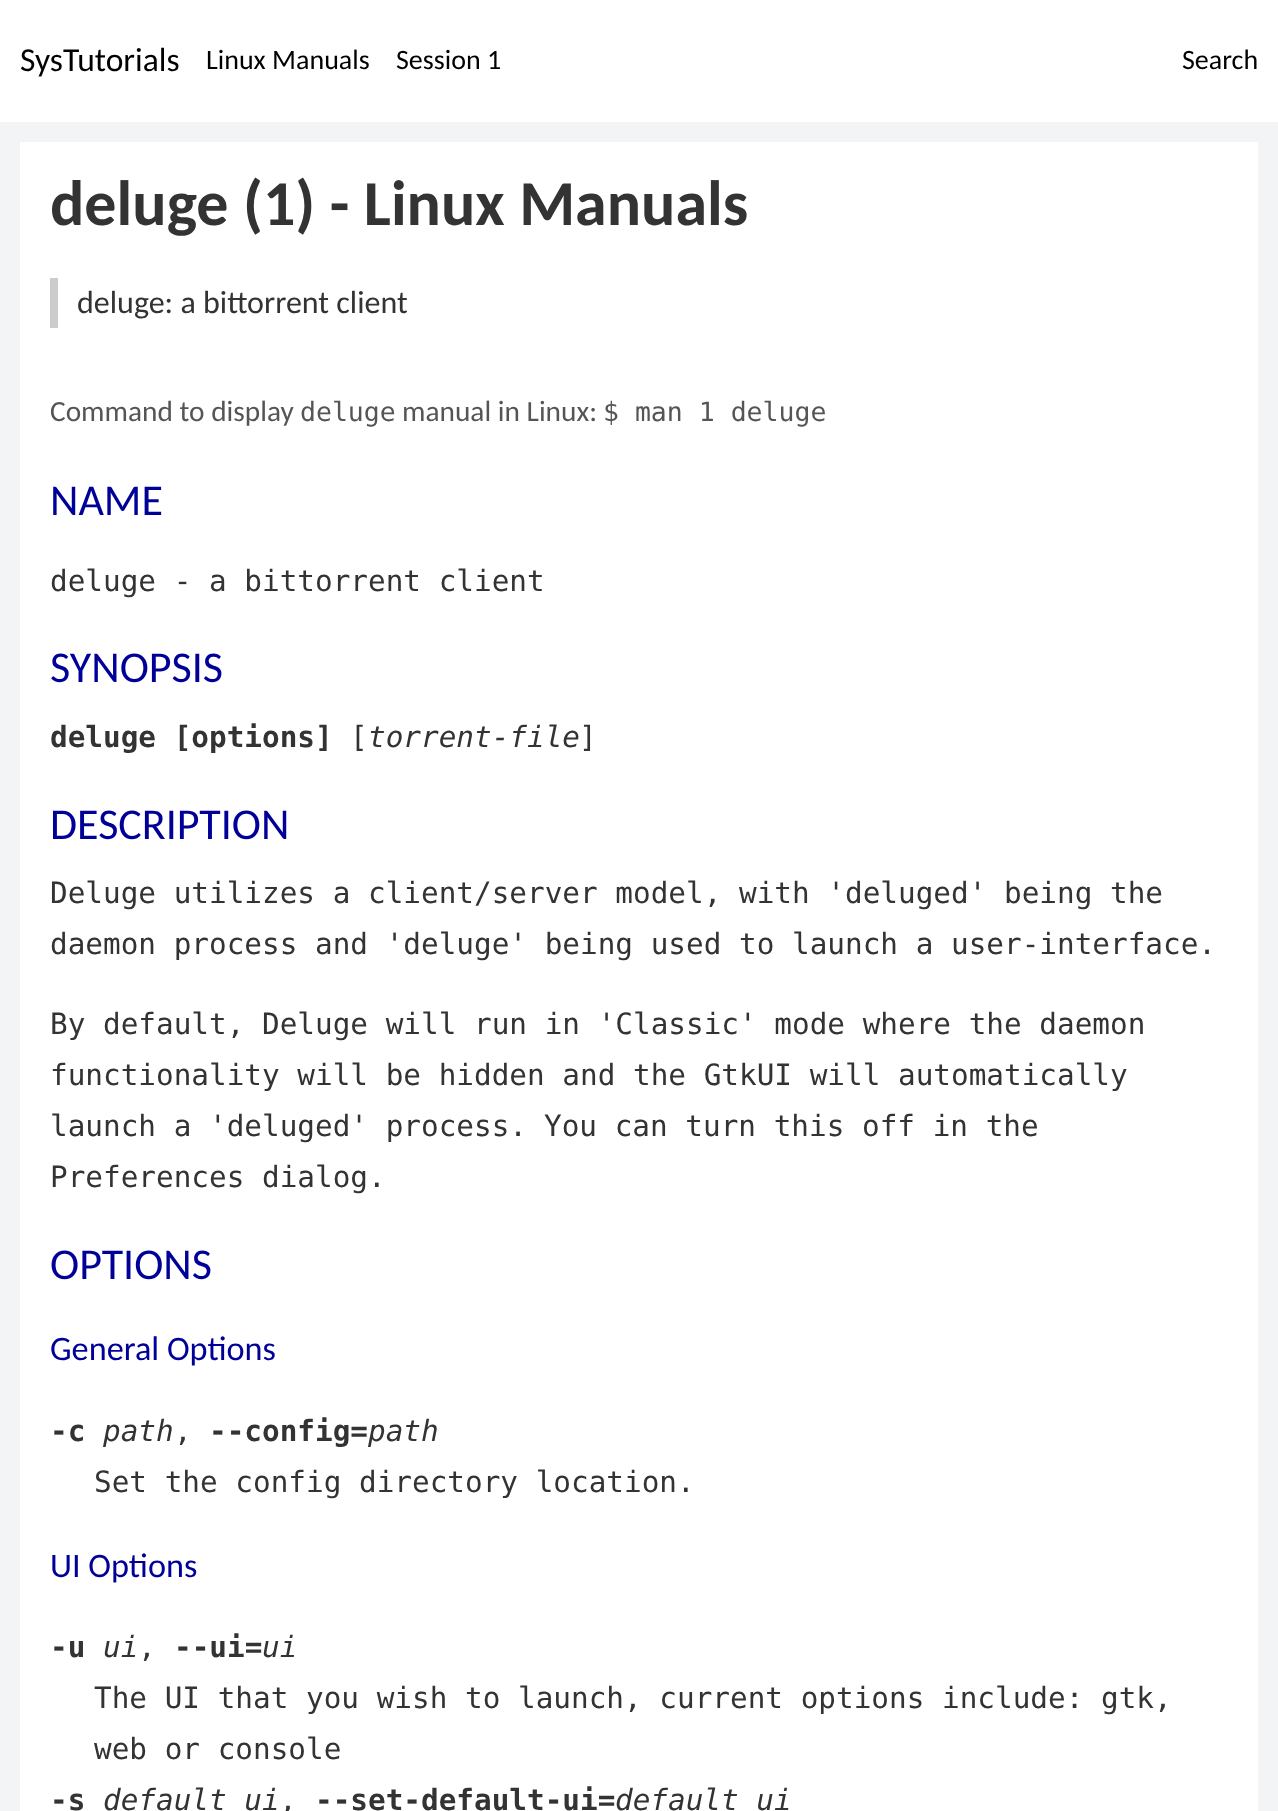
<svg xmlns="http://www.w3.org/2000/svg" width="1278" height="1811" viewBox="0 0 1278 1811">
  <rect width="100%" height="100%" fill="rgb(243,244,246)"/>
  <rect x="0" y="0" width="1278" height="122" fill="rgb(255,255,255)"/>
  <text x="20" y="71" font-family="Carlito" font-size="33.5" fill="rgb(0,0,0)">SysTutorials</text>
  <g font-family="Carlito" font-size="28" fill="rgb(0,0,0)">
    <text x="206" y="69">Linux Manuals</text>
    <text x="396" y="69">Session 1</text>
    <text x="1182" y="69">Search</text>
  </g>
  <rect x="20" y="142" width="1238" height="1669" fill="rgb(255,255,255)"/>
  <text x="50" y="225" font-family="Carlito" font-size="64" font-weight="bold" fill="rgb(51,51,51)">deluge (1) - Linux Manuals</text>
  <rect x="50" y="278" width="8" height="50" fill="rgb(204,204,204)"/>
  <text x="77" y="313" font-family="Carlito" font-size="32" fill="rgb(51,51,51)">deluge: a bittorrent client</text>
  <text x="50" y="421" font-family="Carlito" font-size="29.35" fill="rgb(85,85,85)">Command to display</text>
  <text x="300" y="421" font-family="DejaVu Sans Mono" font-size="26.5" fill="rgb(85,85,85)">deluge</text>
  <text x="402" y="421" font-family="Carlito" font-size="29.35" fill="rgb(85,85,85)">manual in Linux:</text>
  <text x="603" y="421" font-family="DejaVu Sans Mono" font-size="26.5" fill="rgb(85,85,85)">$ man 1 deluge</text>
  <text x="50" y="515" font-family="Carlito" font-size="44" fill="rgb(0,0,153)">NAME</text>
  <text x="50" y="591" font-family="DejaVu Sans Mono" font-size="29.35" fill="rgb(51,51,51)">deluge - a bittorrent client</text>
  <text x="50" y="682" font-family="Carlito" font-size="44" fill="rgb(0,0,153)">SYNOPSIS</text>
  <text x="50" y="747" font-family="DejaVu Sans Mono" font-size="29.35" font-weight="bold" fill="rgb(51,51,51)">deluge [options]</text>
  <text x="350" y="747" font-family="DejaVu Sans Mono" font-size="29.35" fill="rgb(51,51,51)">[</text>
  <text x="368" y="747" font-family="DejaVu Sans Mono" font-size="29.35" font-style="italic" fill="rgb(51,51,51)">torrent-file</text>
  <text x="579" y="747" font-family="DejaVu Sans Mono" font-size="29.35" fill="rgb(51,51,51)">]</text>
  <text x="50" y="839" font-family="Carlito" font-size="44" fill="rgb(0,0,153)">DESCRIPTION</text>
  <g font-family="DejaVu Sans Mono" font-size="29.35" fill="rgb(51,51,51)">
    <text>
      <tspan x="50" y="903">Deluge utilizes a client/server model, with 'deluged' being the</tspan>
      <tspan x="50" y="954">daemon process and 'deluge' being used to launch a user-interface.</tspan>
    </text>
    <text>
      <tspan x="50" y="1034">By default, Deluge will run in 'Classic' mode where the daemon</tspan>
      <tspan x="50" y="1085">functionality will be hidden and the GtkUI will automatically</tspan>
      <tspan x="50" y="1136">launch a 'deluged' process.</tspan>
    </text>
    <text x="544" y="1136">You can turn this off in the</text>
    <text x="50" y="1187">Preferences dialog.</text>
  </g>
  <text x="50" y="1279" font-family="Carlito" font-size="44" fill="rgb(0,0,153)">OPTIONS</text>
  <text x="50" y="1360" font-family="Carlito" font-size="34.25" fill="rgb(0,0,153)">General Options</text>
  <text x="50" y="1441" font-family="DejaVu Sans Mono" font-size="29.35" font-weight="bold" fill="rgb(51,51,51)">-c</text>
  <text x="103" y="1441" font-family="DejaVu Sans Mono" font-size="29.35" font-style="italic" fill="rgb(51,51,51)">path</text>
  <text x="174" y="1441" font-family="DejaVu Sans Mono" font-size="29.35" fill="rgb(51,51,51)">,</text>
  <text x="209" y="1441" font-family="DejaVu Sans Mono" font-size="29.35" font-weight="bold" fill="rgb(51,51,51)">--config=</text>
  <text x="368" y="1441" font-family="DejaVu Sans Mono" font-size="29.35" font-style="italic" fill="rgb(51,51,51)">path</text>
  <text x="94" y="1492" font-family="DejaVu Sans Mono" font-size="29.35" fill="rgb(51,51,51)">Set the config directory location.</text>
  <text x="50" y="1577" font-family="Carlito" font-size="34.25" fill="rgb(0,0,153)">UI Options</text>
  <text x="50" y="1657" font-family="DejaVu Sans Mono" font-size="29.35" font-weight="bold" fill="rgb(51,51,51)">-u</text>
  <text x="103" y="1657" font-family="DejaVu Sans Mono" font-size="29.35" font-style="italic" fill="rgb(51,51,51)">ui</text>
  <text x="138" y="1657" font-family="DejaVu Sans Mono" font-size="29.35" fill="rgb(51,51,51)">,</text>
  <text x="174" y="1657" font-family="DejaVu Sans Mono" font-size="29.35" font-weight="bold" fill="rgb(51,51,51)">--ui=</text>
  <text x="262" y="1657" font-family="DejaVu Sans Mono" font-size="29.35" font-style="italic" fill="rgb(51,51,51)">ui</text>
  <g font-family="DejaVu Sans Mono" font-size="29.35" fill="rgb(51,51,51)">
    <text>
      <tspan x="94" y="1708">The UI that you wish to launch, current options include: gtk,</tspan>
      <tspan x="94" y="1759">web or console</tspan>
    </text>
  </g>
  <text x="50" y="1810" font-family="DejaVu Sans Mono" font-size="29.35" font-weight="bold" fill="rgb(51,51,51)">-s</text>
  <text x="103" y="1810" font-family="DejaVu Sans Mono" font-size="29.35" font-style="italic" fill="rgb(51,51,51)">default_ui</text>
  <text x="279" y="1810" font-family="DejaVu Sans Mono" font-size="29.35" fill="rgb(51,51,51)">,</text>
  <text x="315" y="1810" font-family="DejaVu Sans Mono" font-size="29.35" font-weight="bold" fill="rgb(51,51,51)">--set-default-ui=</text>
  <text x="615" y="1810" font-family="DejaVu Sans Mono" font-size="29.35" font-style="italic" fill="rgb(51,51,51)">default_ui</text>
</svg>
